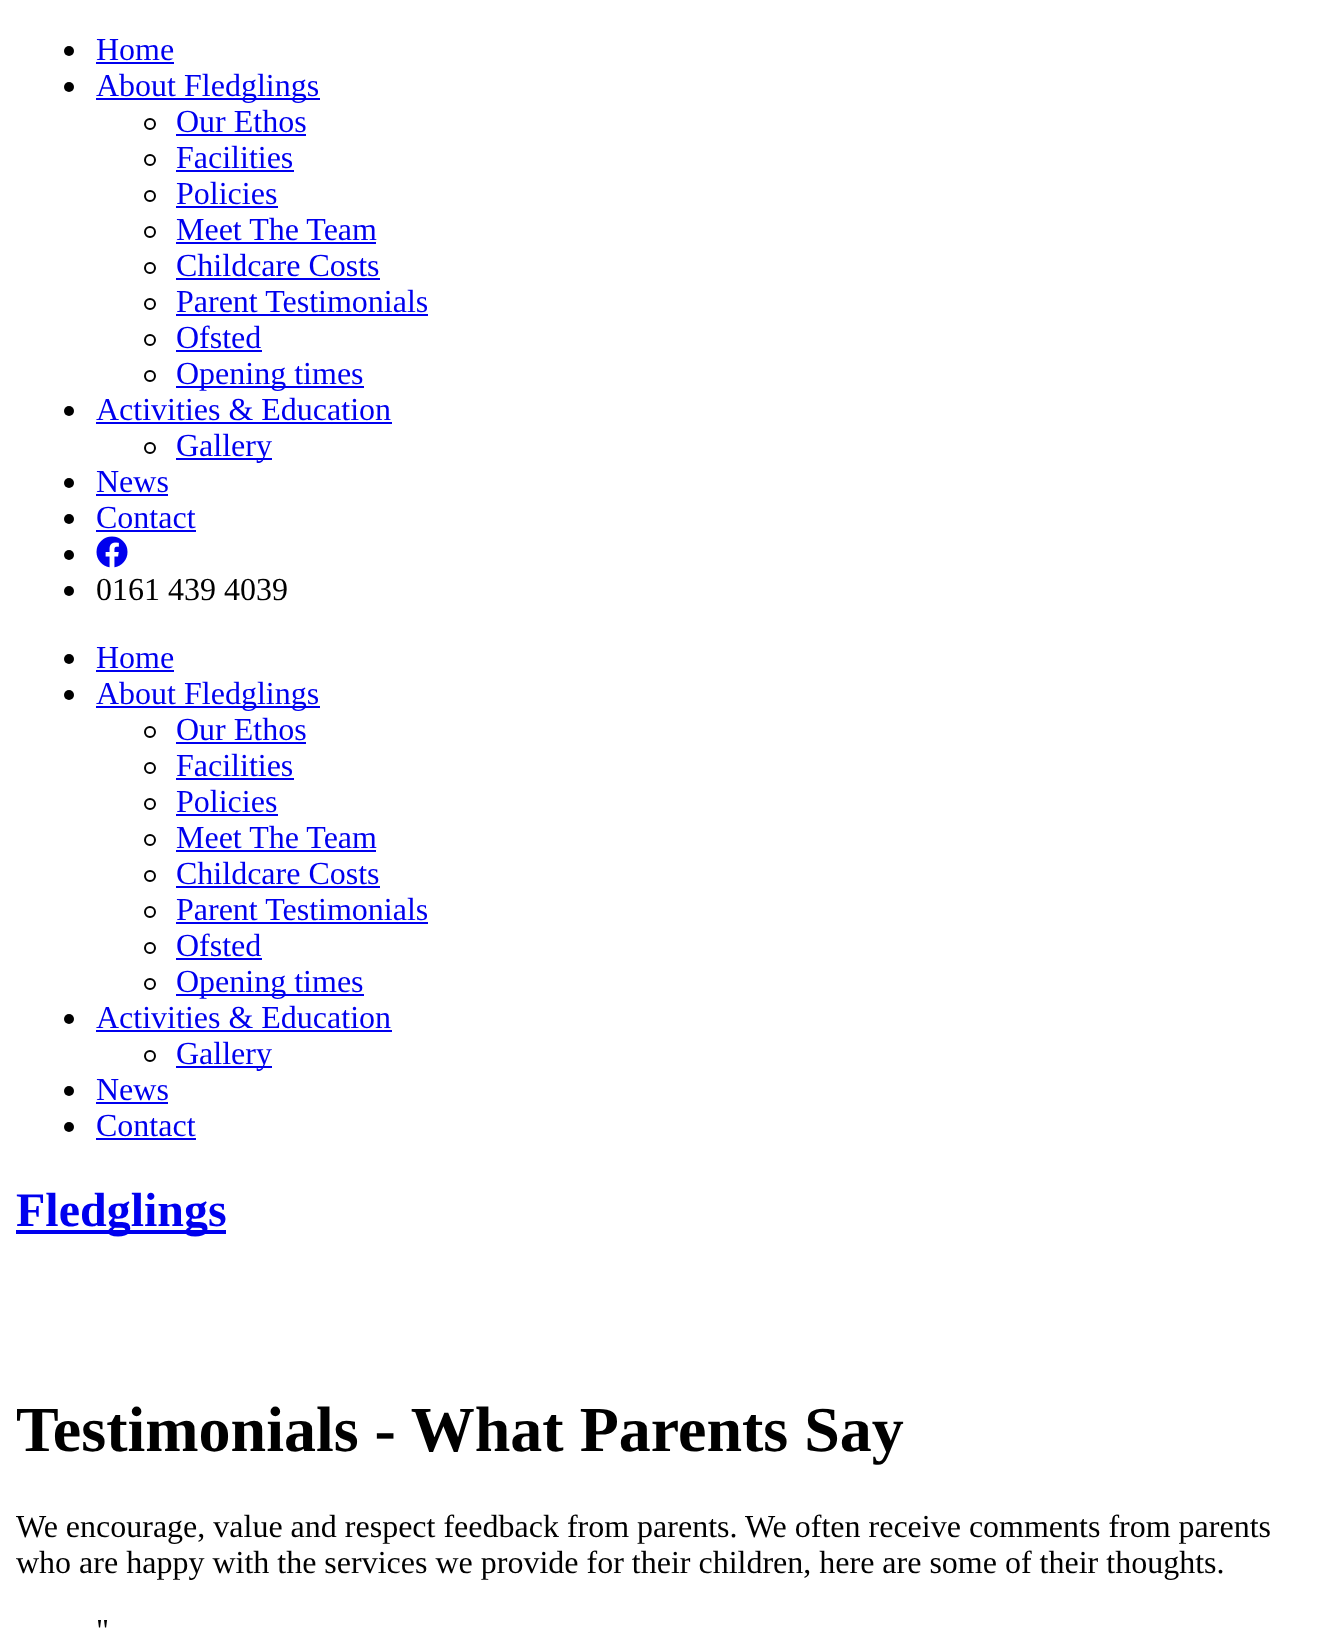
<svg xmlns="http://www.w3.org/2000/svg" width="1330" height="1628" viewBox="0 0 1330 1628">
  <rect width="100%" height="100%" fill="rgb(255,255,255)"/>
  <circle cx="69" cy="51" r="5" fill="rgb(0,0,0)"/>
  <text x="96" y="60" font-family="Liberation Serif" font-size="32" fill="rgb(0,0,238)">Home</text>
  <rect x="96" y="62" width="78" height="2" fill="rgb(0,0,238)"/>
  <circle cx="69" cy="87" r="5" fill="rgb(0,0,0)"/>
  <rect x="96" y="98" width="224" height="2" fill="rgb(0,0,238)"/>
  <text x="96" y="96" font-family="Liberation Serif" font-size="32" fill="rgb(0,0,238)">About Fledglings</text>
  <circle cx="150" cy="124" r="5" fill="none" stroke="rgb(0,0,0)" stroke-width="2"/>
  <text x="176" y="132" font-family="Liberation Serif" font-size="32" fill="rgb(0,0,238)">Our Ethos</text>
  <rect x="176" y="134" width="130" height="2" fill="rgb(0,0,238)"/>
  <circle cx="150" cy="160" r="5" fill="none" stroke="rgb(0,0,0)" stroke-width="2"/>
  <text x="176" y="168" font-family="Liberation Serif" font-size="32" fill="rgb(0,0,238)">Facilities</text>
  <rect x="176" y="170" width="118" height="2" fill="rgb(0,0,238)"/>
  <circle cx="150" cy="196" r="5" fill="none" stroke="rgb(0,0,0)" stroke-width="2"/>
  <text x="176" y="204" font-family="Liberation Serif" font-size="32" fill="rgb(0,0,238)">Policies</text>
  <rect x="176" y="206" width="102" height="2" fill="rgb(0,0,238)"/>
  <circle cx="150" cy="232" r="5" fill="none" stroke="rgb(0,0,0)" stroke-width="2"/>
  <text x="176" y="240" font-family="Liberation Serif" font-size="32" fill="rgb(0,0,238)">Meet The Team</text>
  <rect x="176" y="242" width="200" height="2" fill="rgb(0,0,238)"/>
  <circle cx="150" cy="268" r="5" fill="none" stroke="rgb(0,0,0)" stroke-width="2"/>
  <text x="176" y="276" font-family="Liberation Serif" font-size="32" fill="rgb(0,0,238)">Childcare Costs</text>
  <rect x="176" y="278" width="204" height="2" fill="rgb(0,0,238)"/>
  <circle cx="150" cy="304" r="5" fill="none" stroke="rgb(0,0,0)" stroke-width="2"/>
  <text x="176" y="312" font-family="Liberation Serif" font-size="32" fill="rgb(0,0,238)">Parent Testimonials</text>
  <rect x="176" y="314" width="252" height="2" fill="rgb(0,0,238)"/>
  <circle cx="150" cy="340" r="5" fill="none" stroke="rgb(0,0,0)" stroke-width="2"/>
  <text x="176" y="348" font-family="Liberation Serif" font-size="32" fill="rgb(0,0,238)">Ofsted</text>
  <rect x="176" y="350" width="86" height="2" fill="rgb(0,0,238)"/>
  <circle cx="150" cy="376" r="5" fill="none" stroke="rgb(0,0,0)" stroke-width="2"/>
  <rect x="176" y="386" width="188" height="2" fill="rgb(0,0,238)"/>
  <text x="176" y="384" font-family="Liberation Serif" font-size="32" fill="rgb(0,0,238)">Opening times</text>
  <circle cx="69" cy="411" r="5" fill="rgb(0,0,0)"/>
  <text x="96" y="420" font-family="Liberation Serif" font-size="32" fill="rgb(0,0,238)">Activities &amp; Education</text>
  <rect x="96" y="422" width="296" height="2" fill="rgb(0,0,238)"/>
  <circle cx="150" cy="448" r="5" fill="none" stroke="rgb(0,0,0)" stroke-width="2"/>
  <rect x="176" y="458" width="96" height="2" fill="rgb(0,0,238)"/>
  <text x="176" y="456" font-family="Liberation Serif" font-size="32" fill="rgb(0,0,238)">Gallery</text>
  <circle cx="69" cy="483" r="5" fill="rgb(0,0,0)"/>
  <text x="96" y="492" font-family="Liberation Serif" font-size="32" fill="rgb(0,0,238)">News</text>
  <rect x="96" y="494" width="72" height="2" fill="rgb(0,0,238)"/>
  <circle cx="69" cy="519" r="5" fill="rgb(0,0,0)"/>
  <text x="96" y="528" font-family="Liberation Serif" font-size="32" fill="rgb(0,0,238)">Contact</text>
  <rect x="96" y="530" width="100" height="2" fill="rgb(0,0,238)"/>
  <circle cx="69" cy="555" r="5" fill="rgb(0,0,0)"/>
  <image x="96" y="536" width="32" height="32" href="pic1.png"/>
  <circle cx="69" cy="591" r="5" fill="rgb(0,0,0)"/>
  <text x="96" y="600" font-family="Liberation Serif" font-size="32" fill="rgb(0,0,0)">0161 439 4039</text>
  <circle cx="69" cy="659" r="5" fill="rgb(0,0,0)"/>
  <text x="96" y="668" font-family="Liberation Serif" font-size="32" fill="rgb(0,0,238)">Home</text>
  <rect x="96" y="670" width="78" height="2" fill="rgb(0,0,238)"/>
  <circle cx="69" cy="695" r="5" fill="rgb(0,0,0)"/>
  <rect x="96" y="706" width="224" height="2" fill="rgb(0,0,238)"/>
  <text x="96" y="704" font-family="Liberation Serif" font-size="32" fill="rgb(0,0,238)">About Fledglings</text>
  <circle cx="150" cy="732" r="5" fill="none" stroke="rgb(0,0,0)" stroke-width="2"/>
  <text x="176" y="740" font-family="Liberation Serif" font-size="32" fill="rgb(0,0,238)">Our Ethos</text>
  <rect x="176" y="742" width="130" height="2" fill="rgb(0,0,238)"/>
  <circle cx="150" cy="768" r="5" fill="none" stroke="rgb(0,0,0)" stroke-width="2"/>
  <text x="176" y="776" font-family="Liberation Serif" font-size="32" fill="rgb(0,0,238)">Facilities</text>
  <rect x="176" y="778" width="118" height="2" fill="rgb(0,0,238)"/>
  <circle cx="150" cy="804" r="5" fill="none" stroke="rgb(0,0,0)" stroke-width="2"/>
  <text x="176" y="812" font-family="Liberation Serif" font-size="32" fill="rgb(0,0,238)">Policies</text>
  <rect x="176" y="814" width="102" height="2" fill="rgb(0,0,238)"/>
  <circle cx="150" cy="840" r="5" fill="none" stroke="rgb(0,0,0)" stroke-width="2"/>
  <text x="176" y="848" font-family="Liberation Serif" font-size="32" fill="rgb(0,0,238)">Meet The Team</text>
  <rect x="176" y="850" width="200" height="2" fill="rgb(0,0,238)"/>
  <circle cx="150" cy="876" r="5" fill="none" stroke="rgb(0,0,0)" stroke-width="2"/>
  <text x="176" y="884" font-family="Liberation Serif" font-size="32" fill="rgb(0,0,238)">Childcare Costs</text>
  <rect x="176" y="886" width="204" height="2" fill="rgb(0,0,238)"/>
  <circle cx="150" cy="912" r="5" fill="none" stroke="rgb(0,0,0)" stroke-width="2"/>
  <text x="176" y="920" font-family="Liberation Serif" font-size="32" fill="rgb(0,0,238)">Parent Testimonials</text>
  <rect x="176" y="922" width="252" height="2" fill="rgb(0,0,238)"/>
  <circle cx="150" cy="948" r="5" fill="none" stroke="rgb(0,0,0)" stroke-width="2"/>
  <text x="176" y="956" font-family="Liberation Serif" font-size="32" fill="rgb(0,0,238)">Ofsted</text>
  <rect x="176" y="958" width="86" height="2" fill="rgb(0,0,238)"/>
  <circle cx="150" cy="984" r="5" fill="none" stroke="rgb(0,0,0)" stroke-width="2"/>
  <rect x="176" y="994" width="188" height="2" fill="rgb(0,0,238)"/>
  <text x="176" y="992" font-family="Liberation Serif" font-size="32" fill="rgb(0,0,238)">Opening times</text>
  <circle cx="69" cy="1019" r="5" fill="rgb(0,0,0)"/>
  <text x="96" y="1028" font-family="Liberation Serif" font-size="32" fill="rgb(0,0,238)">Activities &amp; Education</text>
  <rect x="96" y="1030" width="296" height="2" fill="rgb(0,0,238)"/>
  <circle cx="150" cy="1056" r="5" fill="none" stroke="rgb(0,0,0)" stroke-width="2"/>
  <rect x="176" y="1066" width="96" height="2" fill="rgb(0,0,238)"/>
  <text x="176" y="1064" font-family="Liberation Serif" font-size="32" fill="rgb(0,0,238)">Gallery</text>
  <circle cx="69" cy="1091" r="5" fill="rgb(0,0,0)"/>
  <text x="96" y="1100" font-family="Liberation Serif" font-size="32" fill="rgb(0,0,238)">News</text>
  <rect x="96" y="1102" width="72" height="2" fill="rgb(0,0,238)"/>
  <circle cx="69" cy="1127" r="5" fill="rgb(0,0,0)"/>
  <text x="96" y="1136" font-family="Liberation Serif" font-size="32" fill="rgb(0,0,238)">Contact</text>
  <rect x="96" y="1138" width="100" height="2" fill="rgb(0,0,238)"/>
  <rect x="16" y="1230" width="210" height="4" fill="rgb(0,0,238)"/>
  <text x="16" y="1226" font-family="Liberation Serif" font-size="48" font-weight="bold" fill="rgb(0,0,238)">Fledglings</text>
  <text x="16" y="1451" font-family="Liberation Serif" font-size="64" font-weight="bold" fill="rgb(0,0,0)">Testimonials - What Parents Say</text>
  <g font-family="Liberation Serif" font-size="32" fill="rgb(0,0,0)">
    <text>
      <tspan x="16" y="1537">We encourage, value and respect feedback from parents. We often receive comments from parents</tspan>
      <tspan x="16" y="1573">who are happy with the services we provide for their children, here are some of their thoughts.</tspan>
    </text>
    <text x="96" y="1641">"</text>
  </g>
</svg>
